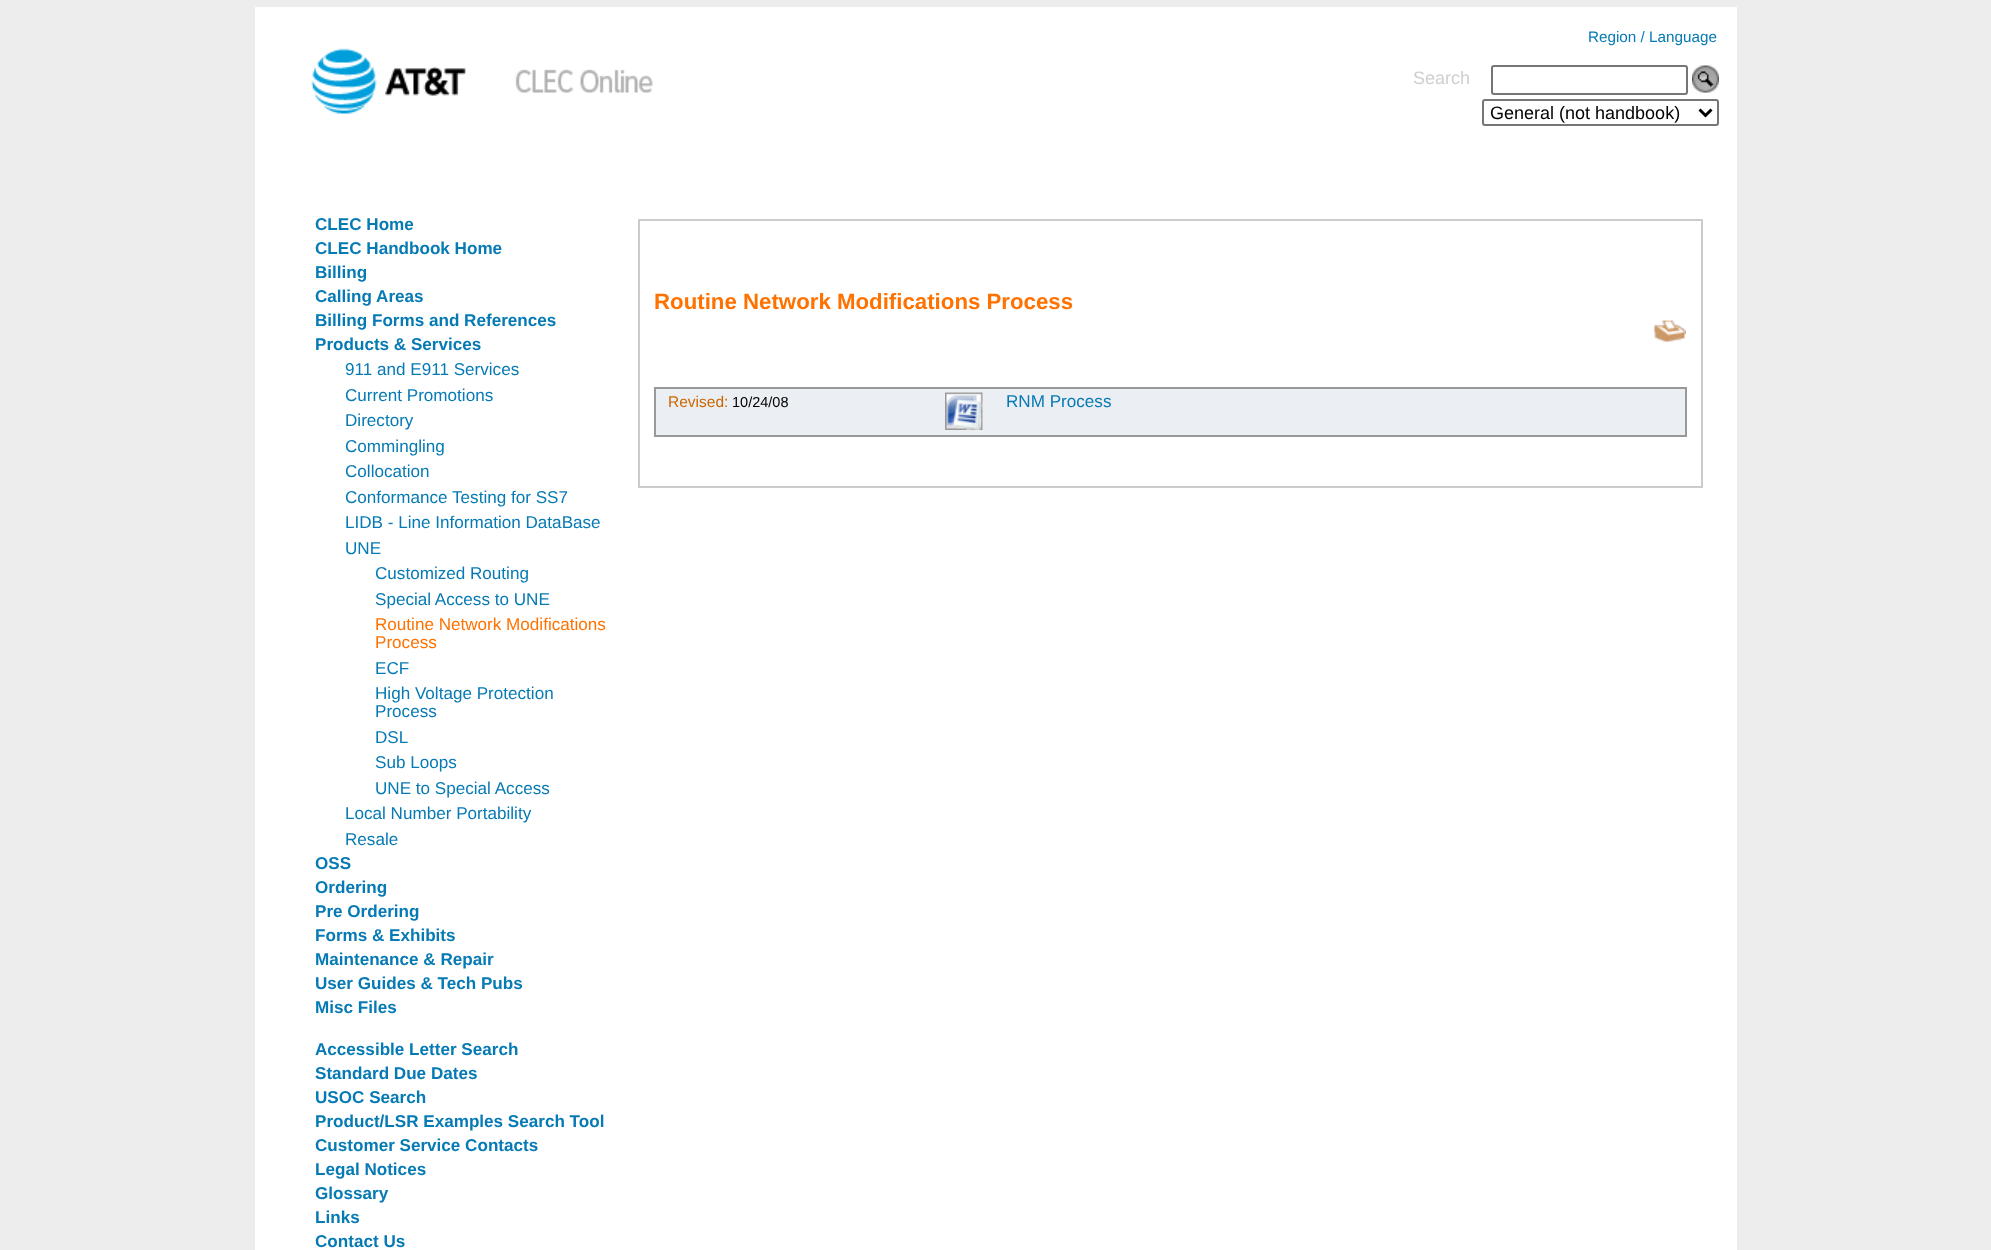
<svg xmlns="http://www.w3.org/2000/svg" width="1991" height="1250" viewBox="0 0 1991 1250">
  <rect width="100%" height="100%" fill="rgb(237,237,237)"/>
  <rect x="255" y="7" width="1482" height="1243" fill="rgb(255,255,255)"/>
  <text x="1588" y="42" font-family="Liberation Sans" font-size="15.25" fill="rgb(6,122,180)">Region / Language</text>
  <image x="311" y="48" width="155" height="66" href="pic1.png"/>
  <image x="515" y="69" width="138" height="24" href="pic2.png"/>
  <text x="1413" y="84" font-family="Liberation Sans" font-size="18" fill="rgb(207,207,207)">Search</text>
  <rect x="1492" y="66" width="195" height="28" rx="2" fill="none" stroke="rgb(118,118,118)" stroke-width="2"/>
  <image x="1692" y="65" width="27" height="28" href="pic3.png"/>
  <rect x="1483" y="100" width="235" height="25" rx="2" fill="none" stroke="rgb(118,118,118)" stroke-width="2"/>
  <path d="M1699.5 109.5L1705.5 115.5L1711.5 109.5" fill="none" stroke="rgb(0,0,0)" stroke-width="3"/>
  <text x="1490" y="119" font-family="Liberation Sans" font-size="18" fill="rgb(0,0,0)">General (not handbook)</text>
  <g font-family="Liberation Sans" font-size="17.1" font-weight="bold" fill="rgb(6,122,180)">
    <text>
      <tspan x="315" y="230">CLEC Home</tspan>
      <tspan x="315" y="254">CLEC Handbook Home</tspan>
      <tspan x="315" y="278">Billing</tspan>
      <tspan x="315" y="302">Calling Areas</tspan>
      <tspan x="315" y="326">Billing Forms and References</tspan>
      <tspan x="315" y="350">Products &amp; Services</tspan>
    </text>
  </g>
  <g font-family="Liberation Sans" font-size="17.1" fill="rgb(6,122,180)">
    <text>
      <tspan x="345" y="375">911 and E911 Services</tspan>
      <tspan x="345" y="401">Current Promotions</tspan>
      <tspan x="345" y="426">Directory</tspan>
      <tspan x="345" y="452">Commingling</tspan>
      <tspan x="345" y="477">Collocation</tspan>
      <tspan x="345" y="503">Conformance Testing for SS7</tspan>
      <tspan x="345" y="528">LIDB - Line Information DataBase</tspan>
      <tspan x="345" y="554">UNE</tspan>
    </text>
    <text>
      <tspan x="375" y="579">Customized Routing</tspan>
      <tspan x="375" y="605">Special Access to UNE</tspan>
    </text>
  </g>
  <g font-family="Liberation Sans" font-size="17.1" fill="rgb(255,114,0)">
    <text>
      <tspan x="375" y="630">Routine Network Modifications</tspan>
      <tspan x="375" y="648">Process</tspan>
    </text>
  </g>
  <g font-family="Liberation Sans" font-size="17.1" fill="rgb(6,122,180)">
    <text>
      <tspan x="375" y="674">ECF</tspan>
      <tspan x="375" y="699">High Voltage Protection</tspan>
      <tspan x="375" y="717">Process</tspan>
      <tspan x="375" y="743">DSL</tspan>
      <tspan x="375" y="768">Sub Loops</tspan>
      <tspan x="375" y="794">UNE to Special Access</tspan>
    </text>
    <text>
      <tspan x="345" y="819">Local Number Portability</tspan>
      <tspan x="345" y="845">Resale</tspan>
    </text>
  </g>
  <g font-family="Liberation Sans" font-size="17.1" font-weight="bold" fill="rgb(6,122,180)">
    <text>
      <tspan x="315" y="869">OSS</tspan>
      <tspan x="315" y="893">Ordering</tspan>
      <tspan x="315" y="917">Pre Ordering</tspan>
      <tspan x="315" y="941">Forms &amp; Exhibits</tspan>
      <tspan x="315" y="965">Maintenance &amp; Repair</tspan>
      <tspan x="315" y="989">User Guides &amp; Tech Pubs</tspan>
      <tspan x="315" y="1013">Misc Files</tspan>
    </text>
    <text>
      <tspan x="315" y="1055">Accessible Letter Search</tspan>
      <tspan x="315" y="1079">Standard Due Dates</tspan>
      <tspan x="315" y="1103">USOC Search</tspan>
      <tspan x="315" y="1127">Product/LSR Examples Search Tool</tspan>
      <tspan x="315" y="1151">Customer Service Contacts</tspan>
      <tspan x="315" y="1175">Legal Notices</tspan>
      <tspan x="315" y="1199">Glossary</tspan>
      <tspan x="315" y="1223">Links</tspan>
      <tspan x="315" y="1247">Contact Us</tspan>
    </text>
  </g>
  <rect x="639" y="220" width="1063" height="267" fill="none" stroke="rgb(204,204,204)" stroke-width="2"/>
  <text x="654" y="309" font-family="Liberation Sans" font-size="22.25" font-weight="bold" fill="rgb(255,114,0)">Routine Network Modifications Process</text>
  <image x="1654" y="320" width="32" height="22" href="pic4.png"/>
  <rect x="656" y="389" width="1029" height="46" fill="rgb(235,238,243)"/>
  <rect x="654" y="387" width="1032" height="2" fill="rgb(153,153,153)"/>
  <rect x="1685" y="387" width="2" height="50" fill="rgb(153,153,153)"/>
  <rect x="654" y="435" width="1032" height="2" fill="rgb(153,153,153)"/>
  <rect x="654" y="387" width="2" height="50" fill="rgb(153,153,153)"/>
  <text x="668" y="407" font-family="Liberation Sans" font-size="15.5" fill="rgb(204,102,0)">Revised:</text>
  <text x="732" y="407" font-family="Liberation Sans" font-size="14.5" fill="rgb(0,0,0)">10/24/08</text>
  <image x="945" y="392" width="38" height="38" href="pic5.png"/>
  <text x="1006" y="407" font-family="Liberation Sans" font-size="17.1" fill="rgb(6,122,180)">RNM Process</text>
</svg>
